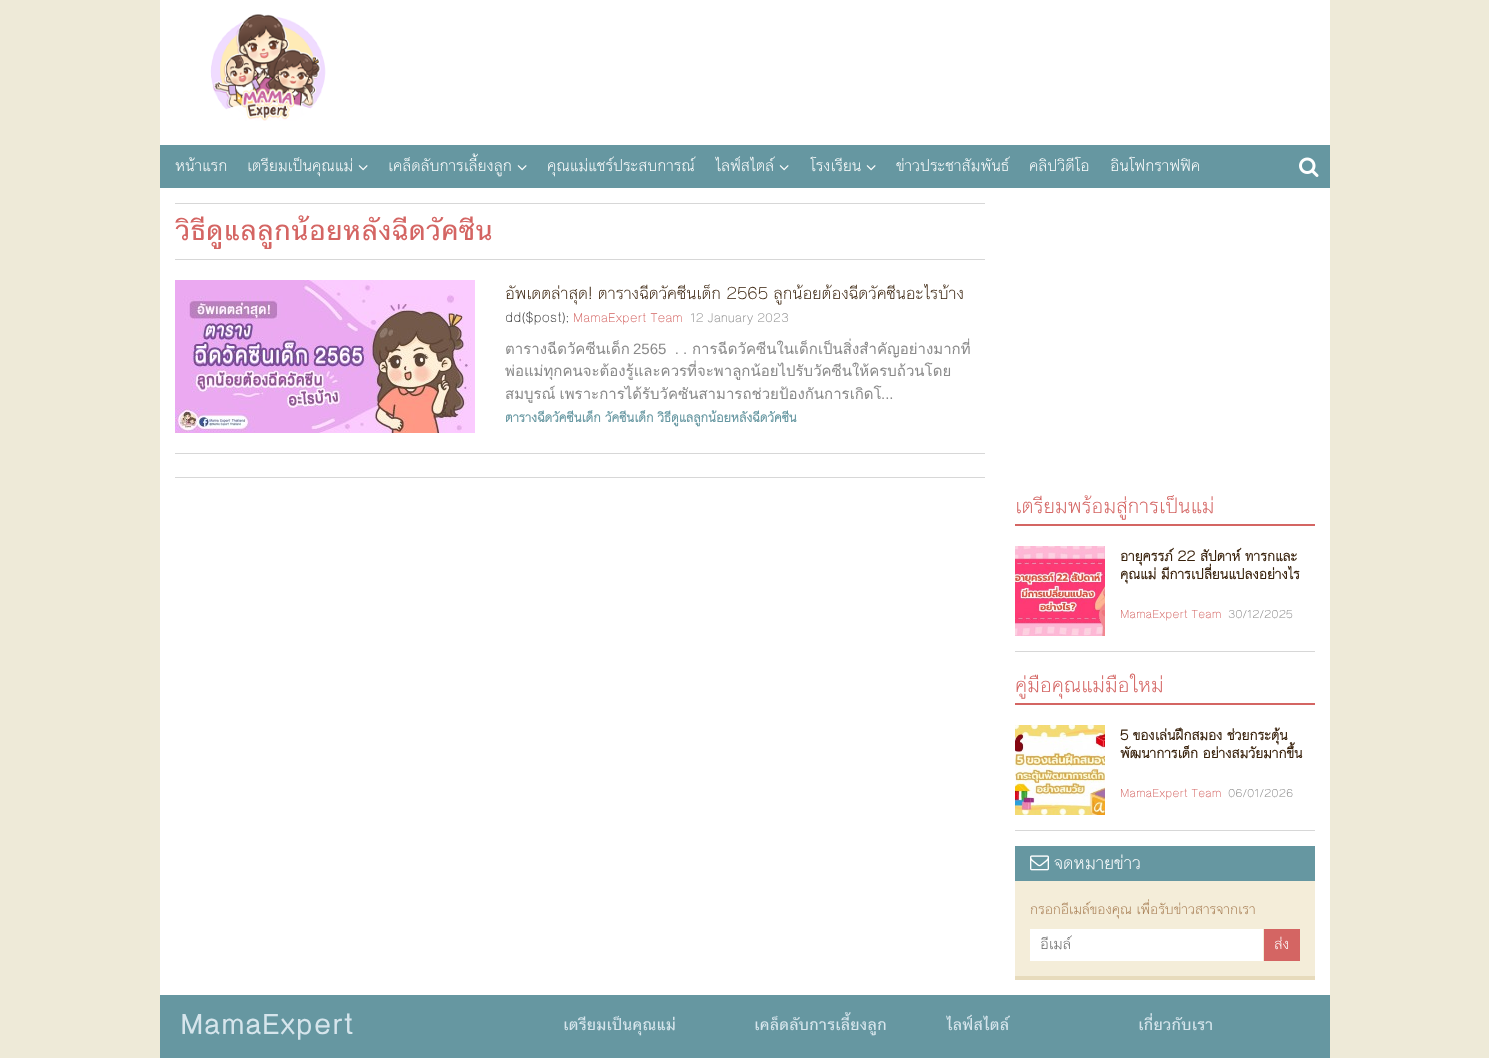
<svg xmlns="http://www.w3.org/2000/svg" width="1489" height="1058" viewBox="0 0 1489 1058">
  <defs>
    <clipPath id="clip1"><rect x="175" y="203" width="1140" height="792"/></clipPath>
    <clipPath id="clip2"><rect x="505" y="338" width="480" height="65"/></clipPath>
    <clipPath id="clip3"><rect x="1120" y="546" width="195" height="54"/></clipPath>
    <clipPath id="clip4"><rect x="1120" y="725" width="195" height="54"/></clipPath>
    <clipPath id="clip5"><rect x="1040" y="932" width="213" height="25"/></clipPath>
  </defs>
  <rect width="100%" height="100%" fill="rgb(238,234,216)"/>
  <rect x="160" y="0" width="1170" height="995" fill="rgb(255,255,255)"/>
  <image x="210" y="14" width="116" height="107" href="pic1.png"/>
  <rect x="160" y="145" width="1170" height="43" fill="rgb(102,151,161)"/>
  <g font-family="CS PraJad" font-size="17" fill="rgb(255,255,255)">
    <text x="175" y="171">หน้าแรก</text>
    <text x="247" y="171">เตรียมเป็นคุณแม่</text>
  </g>
  <image x="358" y="165" width="10" height="6" href="pic2.png"/>
  <text x="388" y="171" font-family="CS PraJad" font-size="17" fill="rgb(255,255,255)">เคล็ดลับการเลี้ยงลูก</text>
  <image x="517" y="165" width="10" height="6" href="pic2.png"/>
  <g font-family="CS PraJad" font-size="17" fill="rgb(255,255,255)">
    <text x="547" y="171">คุณแม่แชร์ประสบการณ์</text>
    <text x="715" y="171">ไลฟ์สไตล์</text>
  </g>
  <image x="779" y="165" width="10" height="6" href="pic2.png"/>
  <text x="810" y="171" font-family="CS PraJad" font-size="17" fill="rgb(255,255,255)">โรงเรียน</text>
  <image x="866" y="165" width="10" height="6" href="pic2.png"/>
  <g font-family="CS PraJad" font-size="17" fill="rgb(255,255,255)">
    <text x="896" y="171">ข่าวประชาสัมพันธ์</text>
    <text x="1029" y="171">คลิปวิดีโอ</text>
    <text x="1110" y="171">อินโฟกราฟฟิค</text>
  </g>
  <image x="1299" y="157" width="20" height="20" href="pic3.png"/>
  <rect x="175" y="203" width="810" height="1" fill="rgb(215,215,215)"/>
  <rect x="175" y="259" width="810" height="1" fill="rgb(215,215,215)"/>
  <g clip-path="url(#clip1)">
    <text x="175" y="240" font-family="'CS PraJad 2'" font-size="30" font-weight="bold" fill="rgb(212,101,99)">วิธีดูแลลูกน้อยหลังฉีดวัคซีน</text>
  </g>
  <rect x="175" y="453" width="810" height="1" fill="rgb(215,215,215)"/>
  <image x="175" y="280" width="300" height="153" href="pic4.png"/>
  <text x="505" y="299" font-family="CS PraJad" font-size="18" fill="rgb(56,33,11)">อัพเดตล่าสุด! ตารางฉีดวัคซีนเด็ก 2565 ลูกน้อยต้องฉีดวัคซีนอะไรบ้าง</text>
  <text x="505" y="322" font-family="CS PraJad" font-size="14" fill="rgb(51,51,51)">dd($post);</text>
  <text x="573" y="322" font-family="CS PraJad" font-size="13" fill="rgb(212,101,99)">MamaExpert Team</text>
  <text x="690" y="322" font-family="CS PraJad" font-size="13" fill="rgb(137,137,137)">12 January 2023</text>
  <text x="505" y="354" font-family="Loma" font-size="15" fill="rgb(137,137,137)">ตารางฉีดวัคซีนเด็ก</text>
  <text x="633" y="354" font-family="Liberation Sans" font-size="15" fill="rgb(137,137,137)" xml:space="preserve">2565  . .</text>
  <text x="692" y="354" font-family="Loma" font-size="15" fill="rgb(137,137,137)">การฉีดวัคซีนในเด็กเป็นสิ่งสำคัญอย่างมากที่</text>
  <g clip-path="url(#clip2)">
    <text x="505" y="376" font-family="Loma" font-size="15" fill="rgb(137,137,137)">พ่อแม่ทุกคนจะต้องรู้และควรที่จะพาลูกน้อยไปรับวัคซีนให้ครบถ้วนโดย</text>
  </g>
  <text x="505" y="399" word-spacing="-1" font-family="Loma" font-size="15" fill="rgb(137,137,137)">สมบูรณ์ เพราะการได้รับวัคซันสามารถช่วยป้องกันการเกิดโ</text>
  <text x="881" y="399" font-family="Liberation Sans" font-size="15" fill="rgb(137,137,137)">...</text>
  <text x="505" y="422" font-family="CS PraJad" font-size="14" font-weight="bold" fill="rgb(102,151,161)">ตารางฉีดวัคซีนเด็ก วัคซีนเด็ก วิธีดูแลลูกน้อยหลังฉีดวัคซีน</text>
  <rect x="175" y="477" width="810" height="1" fill="rgb(215,215,215)"/>
  <rect x="1015" y="524" width="300" height="2" fill="rgb(212,101,99)"/>
  <text x="1015" y="513" font-family="CS PraJad" font-size="22" fill="rgb(212,101,99)">เตรียมพร้อมสู่การเป็นแม่</text>
  <rect x="1015" y="651" width="300" height="1" fill="rgb(215,215,215)"/>
  <image x="1015" y="546" width="90" height="90" href="pic5.png"/>
  <text x="1120" y="561" font-family="CS PraJad" font-size="15" font-weight="bold" fill="rgb(56,33,11)">อายุครรภ์ 22 สัปดาห์ ทารกและ</text>
  <g clip-path="url(#clip3)">
    <text x="1120" y="579" font-family="CS PraJad" font-size="15" font-weight="bold" fill="rgb(56,33,11)">คุณแม่ มีการเปลี่ยนแปลงอย่างไร</text>
  </g>
  <text x="1120" y="618" font-family="CS PraJad" font-size="12" fill="rgb(212,101,99)">MamaExpert Team</text>
  <text x="1228" y="618" font-family="CS PraJad" font-size="12" fill="rgb(137,137,137)">30/12/2025</text>
  <rect x="1015" y="703" width="300" height="2" fill="rgb(212,101,99)"/>
  <text x="1015" y="692" font-family="CS PraJad" font-size="22" fill="rgb(212,101,99)">คู่มือคุณแม่มือใหม่</text>
  <rect x="1015" y="830" width="300" height="1" fill="rgb(215,215,215)"/>
  <image x="1015" y="725" width="90" height="90" href="pic6.png"/>
  <text x="1120" y="740" font-family="CS PraJad" font-size="15" font-weight="bold" fill="rgb(56,33,11)">5 ของเล่นฝึกสมอง ช่วยกระตุ้น</text>
  <g clip-path="url(#clip4)">
    <text x="1120" y="758" font-family="CS PraJad" font-size="15" font-weight="bold" fill="rgb(56,33,11)">พัฒนาการเด็ก อย่างสมวัยมากขึ้น</text>
  </g>
  <text x="1120" y="797" font-family="CS PraJad" font-size="12" fill="rgb(212,101,99)">MamaExpert Team</text>
  <text x="1228" y="797" font-family="CS PraJad" font-size="12" fill="rgb(137,137,137)">06/01/2026</text>
  <rect x="1015" y="846" width="300" height="35" fill="rgb(102,151,161)"/>
  <image x="1030" y="855" width="19" height="16" href="pic7.png"/>
  <text x="1054" y="869" font-family="CS PraJad" font-size="19" fill="rgb(255,255,255)">จดหมายข่าว</text>
  <rect x="1015" y="881" width="300" height="95" fill="rgb(244,237,217)"/>
  <rect x="1015" y="976" width="300" height="4" fill="rgb(231,219,188)"/>
  <text x="1030" y="914" font-family="CS PraJad" font-size="15" fill="rgb(166,124,82)">กรอกอีเมล์ของคุณ เพื่อรับข่าวสารจากเรา</text>
  <rect x="1030" y="929" width="233" height="32" fill="rgb(255,255,255)"/>
  <g clip-path="url(#clip5)">
    <text x="1040" y="949" font-family="CS PraJad" font-size="16" fill="rgb(102,102,102)">อีเมล์</text>
  </g>
  <rect x="1264" y="929" width="36" height="32" fill="rgb(212,101,99)"/>
  <text x="1274" y="949" font-family="CS PraJad" font-size="16" fill="rgb(255,255,255)">ส่ง</text>
  <rect x="160" y="995" width="1170" height="63" fill="rgb(102,151,161)"/>
  <text x="180" y="1034" font-family="'CS PraJad 2'" font-size="30" font-weight="bold" fill="rgb(214,229,236)">MamaExpert</text>
  <g font-family="'CS PraJad 2'" font-size="17" font-weight="bold" fill="rgb(214,229,236)">
    <text x="563" y="1030">เตรียมเป็นคุณแม่</text>
    <text x="754" y="1030">เคล็ดลับการเลี้ยงลูก</text>
    <text x="946" y="1030">ไลฟ์สไตล์</text>
    <text x="1138" y="1030">เกี่ยวกับเรา</text>
  </g>
</svg>
